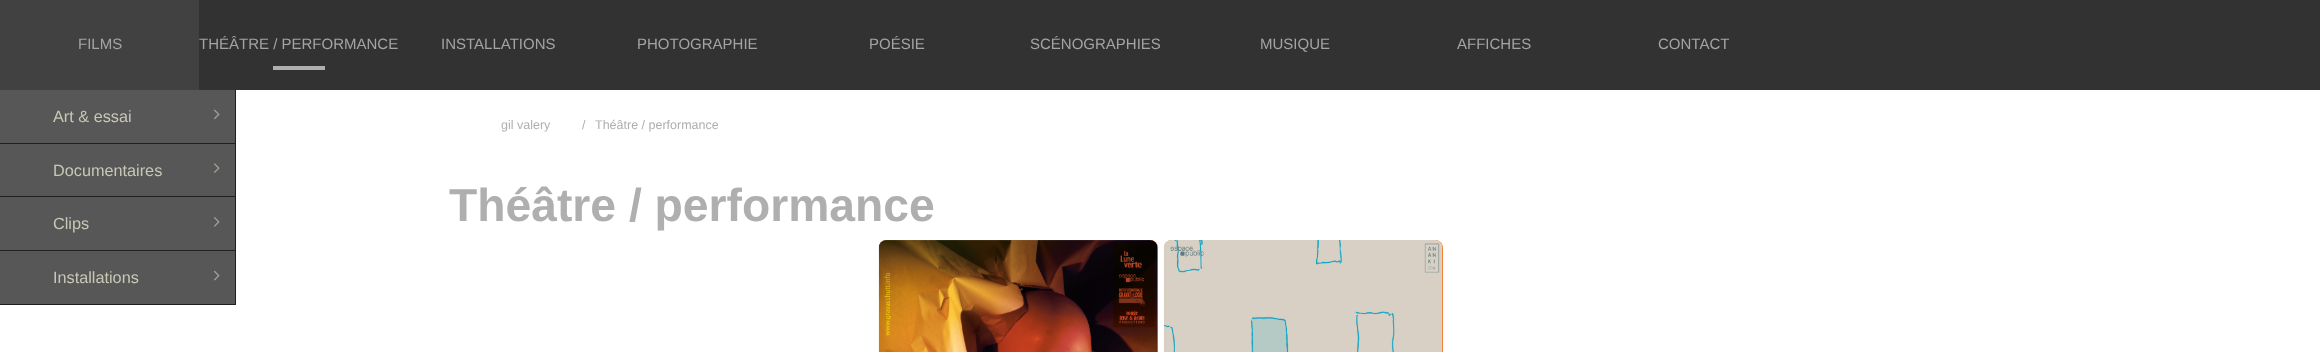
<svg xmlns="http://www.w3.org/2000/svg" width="2320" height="352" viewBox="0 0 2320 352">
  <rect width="100%" height="100%" fill="rgb(255,255,255)"/>
  <rect x="199" y="0" width="2121" height="90" fill="rgb(50,50,50)"/>
  <rect x="0" y="0" width="199" height="90" fill="rgb(65,65,65)"/>
  <text x="78" y="49" font-family="Liberation Sans" font-size="15" fill="rgb(165,164,163)">FILMS</text>
  <rect x="0" y="90" width="236" height="215" fill="rgb(87,87,87)"/>
  <path d="M236 90V305L235 304V90Z" fill="rgb(30,30,30)"/>
  <path d="M236 305H-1L0 304H235Z" fill="rgba(0,0,0,0.66)"/>
  <rect x="0" y="143" width="235" height="1" fill="rgb(33,33,33)"/>
  <text x="53" y="122" font-family="Liberation Sans" font-size="16.25" fill="rgb(201,199,182)">Art &amp; essai</text>
  <image x="214" y="109" width="6" height="11" href="pic1.png"/>
  <rect x="0" y="196" width="235" height="1" fill="rgb(33,33,33)"/>
  <text x="53" y="176" font-family="Liberation Sans" font-size="16.25" fill="rgb(201,199,182)">Documentaires</text>
  <image x="214" y="163" width="6" height="10" href="pic2.png"/>
  <rect x="0" y="250" width="235" height="1" fill="rgb(33,33,33)"/>
  <text x="53" y="229" font-family="Liberation Sans" font-size="16.25" fill="rgb(201,199,182)">Clips</text>
  <image x="214" y="217" width="6" height="10" href="pic3.png"/>
  <text x="53" y="283" font-family="Liberation Sans" font-size="16.25" fill="rgb(201,199,182)">Installations</text>
  <image x="214" y="270" width="6" height="11" href="pic4.png"/>
  <text x="199" y="49" font-family="Liberation Sans" font-size="15" fill="rgb(165,164,163)">THÉÂTRE / PERFORMANCE</text>
  <rect x="273" y="66" width="52" height="4" fill="rgb(175,175,175)"/>
  <g font-family="Liberation Sans" font-size="15" fill="rgb(165,164,163)">
    <text x="441" y="49">INSTALLATIONS</text>
    <text x="637" y="49">PHOTOGRAPHIE</text>
    <text x="869" y="49">POÉSIE</text>
    <text x="1030" y="49">SCÉNOGRAPHIES</text>
    <text x="1260" y="49">MUSIQUE</text>
    <text x="1457" y="49">AFFICHES</text>
    <text x="1658" y="49">CONTACT</text>
  </g>
  <g font-family="Liberation Sans" font-size="12.5" fill="rgb(175,175,175)">
    <text x="501" y="129">gil valery</text>
    <text x="582" y="129">/</text>
    <text x="595" y="129">Théâtre / performance</text>
  </g>
  <text x="449" y="221" font-family="Liberation Sans" font-size="46.25" font-weight="bold" fill="rgb(175,175,175)">Théâtre / performance</text>
  <rect x="879" y="240" width="279" height="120" rx="8" fill="rgb(255,105,8)"/>
  <image x="878" y="240" width="280" height="112" href="pic5.png"/>
  <rect x="1164" y="240" width="279" height="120" rx="8" fill="rgb(255,105,8)"/>
  <image x="1163" y="240" width="280" height="112" href="pic6.png"/>
</svg>
